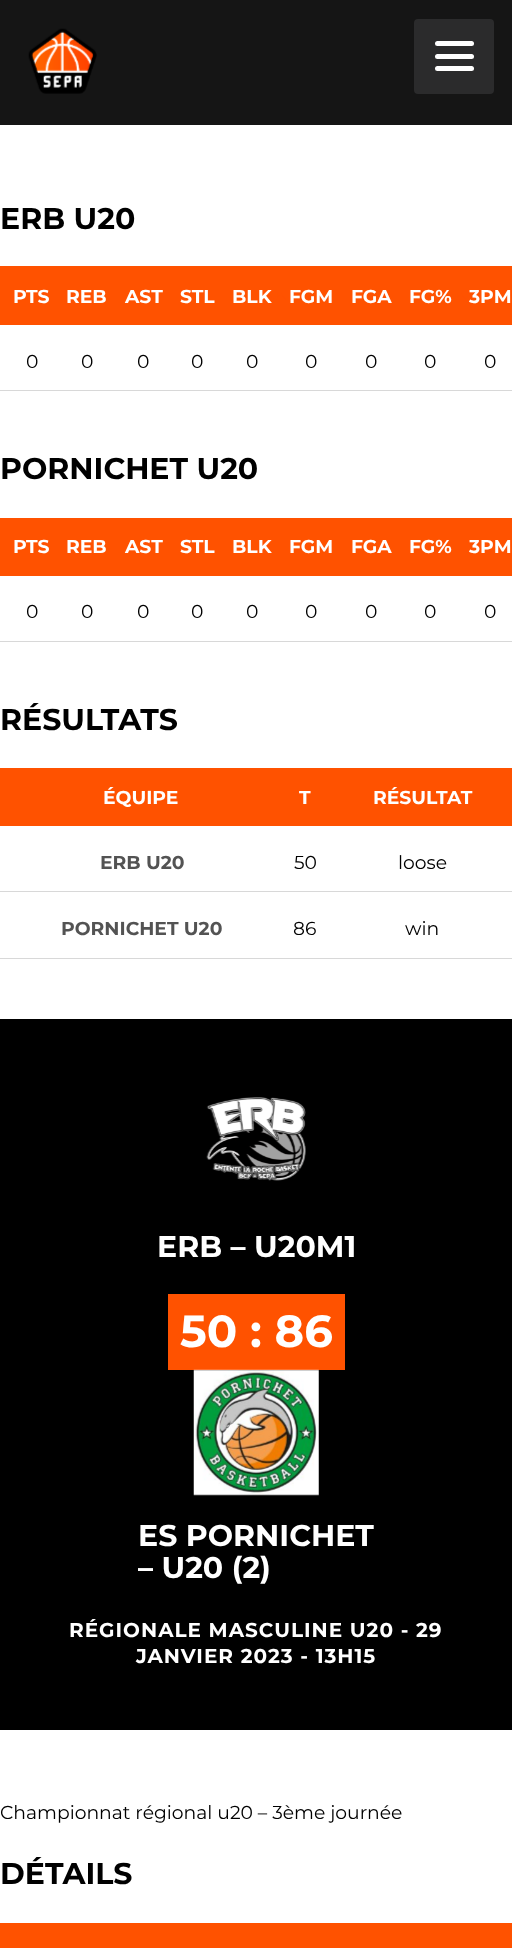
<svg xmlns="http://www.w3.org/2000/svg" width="512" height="1948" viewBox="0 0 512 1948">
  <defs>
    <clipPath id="clip1"><rect x="138" y="1520" width="237" height="65"/></clipPath>
  </defs>
  <rect width="100%" height="100%" fill="rgb(255,255,255)"/>
  <rect x="0" y="0" width="512" height="125" fill="rgb(21,21,21)"/>
  <image x="28" y="28" width="69" height="66" href="pic1.png"/>
  <rect x="414" y="19" width="80" height="75" rx="4" fill="rgb(43,43,44)"/>
  <rect x="435" y="41" width="39" height="5" rx="2.5" fill="rgb(255,255,255)"/>
  <rect x="435" y="54" width="39" height="5" rx="2.5" fill="rgb(255,255,255)"/>
  <rect x="435" y="66" width="39" height="5" rx="2.5" fill="rgb(255,255,255)"/>
  <text x="0" y="229" font-family="Montserrat" font-size="30" font-weight="bold" fill="rgb(0,0,0)">ERB U20</text>
  <rect x="0" y="266" width="512" height="59" fill="rgb(255,82,0)"/>
  <g font-family="Montserrat" font-size="18.75" font-weight="bold" fill="rgb(255,255,255)">
    <text x="13" y="303">PTS</text>
    <text x="66" y="303">REB</text>
    <text x="125" y="303">AST</text>
    <text x="180" y="303">STL</text>
    <text x="232" y="303">BLK</text>
  </g>
  <path d="M278 293H268.5L273 299.5ZM276 299.5H285.5L280.5 293Z" fill="rgb(255,82,0)"/>
  <g font-family="Montserrat" font-size="18.75" font-weight="bold" fill="rgb(255,255,255)">
    <text x="289" y="303">FGM</text>
    <text x="351" y="303">FGA</text>
    <text x="409" y="303">FG%</text>
  </g>
  <path d="M458 293H448.5L453 299.5ZM456 299.5H465.5L460.5 293Z" fill="rgb(255,82,0)"/>
  <text x="469" y="303" font-family="Montserrat" font-size="18.75" font-weight="bold" fill="rgb(255,255,255)">3PM</text>
  <rect x="0" y="390" width="512" height="1" fill="rgb(216,216,216)"/>
  <g font-family="Montserrat" font-size="18.75" fill="rgb(0,0,0)">
    <text x="26" y="368">0</text>
    <text x="81" y="368">0</text>
    <text x="137" y="368">0</text>
    <text x="191" y="368">0</text>
    <text x="246" y="368">0</text>
    <text x="305" y="368">0</text>
    <text x="365" y="368">0</text>
    <text x="424" y="368">0</text>
    <text x="484" y="368">0</text>
  </g>
  <text x="0" y="479" font-family="Montserrat" font-size="30" font-weight="bold" fill="rgb(0,0,0)">PORNICHET U20</text>
  <rect x="0" y="518" width="512" height="58" fill="rgb(255,82,0)"/>
  <g font-family="Montserrat" font-size="18.75" font-weight="bold" fill="rgb(255,255,255)">
    <text x="13" y="553">PTS</text>
    <text x="66" y="553">REB</text>
    <text x="125" y="553">AST</text>
    <text x="180" y="553">STL</text>
    <text x="232" y="553">BLK</text>
    <text x="289" y="553">FGM</text>
    <text x="351" y="553">FGA</text>
    <text x="409" y="553">FG%</text>
    <text x="469" y="553">3PM</text>
  </g>
  <rect x="0" y="641" width="512" height="1" fill="rgb(216,216,216)"/>
  <g font-family="Montserrat" font-size="18.75" fill="rgb(0,0,0)">
    <text x="26" y="618">0</text>
    <text x="81" y="618">0</text>
    <text x="137" y="618">0</text>
    <text x="191" y="618">0</text>
    <text x="246" y="618">0</text>
    <text x="305" y="618">0</text>
    <text x="365" y="618">0</text>
    <text x="424" y="618">0</text>
    <text x="484" y="618">0</text>
  </g>
  <text x="0" y="730" font-family="Montserrat" font-size="30" font-weight="bold" fill="rgb(0,0,0)">RÉSULTATS</text>
  <rect x="0" y="768" width="512" height="58" fill="rgb(255,82,0)"/>
  <g font-family="Montserrat" font-size="18.75" font-weight="bold" fill="rgb(255,255,255)">
    <text x="103" y="804">ÉQUIPE</text>
    <text x="299" y="804">T</text>
    <text x="373" y="804">RÉSULTAT</text>
  </g>
  <rect x="0" y="891" width="512" height="1" fill="rgb(216,216,216)"/>
  <text x="100" y="869" font-family="Montserrat" font-size="18.75" font-weight="bold" fill="rgb(83,83,83)">ERB U20</text>
  <g font-family="Montserrat" font-size="18.75" fill="rgb(0,0,0)">
    <text x="294" y="869">50</text>
    <text x="398" y="869">loose</text>
  </g>
  <rect x="0" y="958" width="512" height="1" fill="rgb(216,216,216)"/>
  <text x="61" y="935" font-family="Montserrat" font-size="18.75" font-weight="bold" fill="rgb(83,83,83)">PORNICHET U20</text>
  <g font-family="Montserrat" font-size="18.75" fill="rgb(0,0,0)">
    <text x="293" y="935">86</text>
    <text x="405" y="935">win</text>
  </g>
  <rect x="0" y="1019" width="512" height="711" fill="rgb(0,0,0)"/>
  <image x="206" y="1097" width="100" height="84" href="pic2.png"/>
  <text x="157" y="1257" font-family="Montserrat" font-size="30" font-weight="bold" fill="rgb(255,255,255)">ERB – U20M1</text>
  <rect x="168" y="1294" width="177" height="76" fill="rgb(255,82,0)"/>
  <text x="180" y="1347" font-family="Montserrat" font-size="45" font-weight="bold" fill="rgb(255,255,255)">50 : 86</text>
  <image x="193" y="1369" width="126" height="127" href="pic3.png"/>
  <text x="138" y="1546" font-family="Montserrat" font-size="30" font-weight="bold" fill="rgb(255,255,255)">ES PORNICHET</text>
  <g clip-path="url(#clip1)">
    <text x="138" y="1578" font-family="Montserrat" font-size="30" font-weight="bold" fill="rgb(255,255,255)">– U20 (2)</text>
  </g>
  <g font-family="Montserrat" font-size="20" font-weight="bold" letter-spacing="1" fill="rgb(255,255,255)">
    <text x="69" y="1637">RÉGIONALE MASCULINE U20 - 29</text>
    <text x="136" y="1663">JANVIER 2023 - 13H15</text>
  </g>
  <text x="0" y="1819" font-family="Montserrat" font-size="18.75" fill="rgb(0,0,0)">Championnat régional u20 – 3ème journée</text>
  <text x="0" y="1884" font-family="Montserrat" font-size="30" font-weight="bold" fill="rgb(0,0,0)">DÉTAILS</text>
  <rect x="0" y="1923" width="512" height="25" fill="rgb(255,82,0)"/>
</svg>
